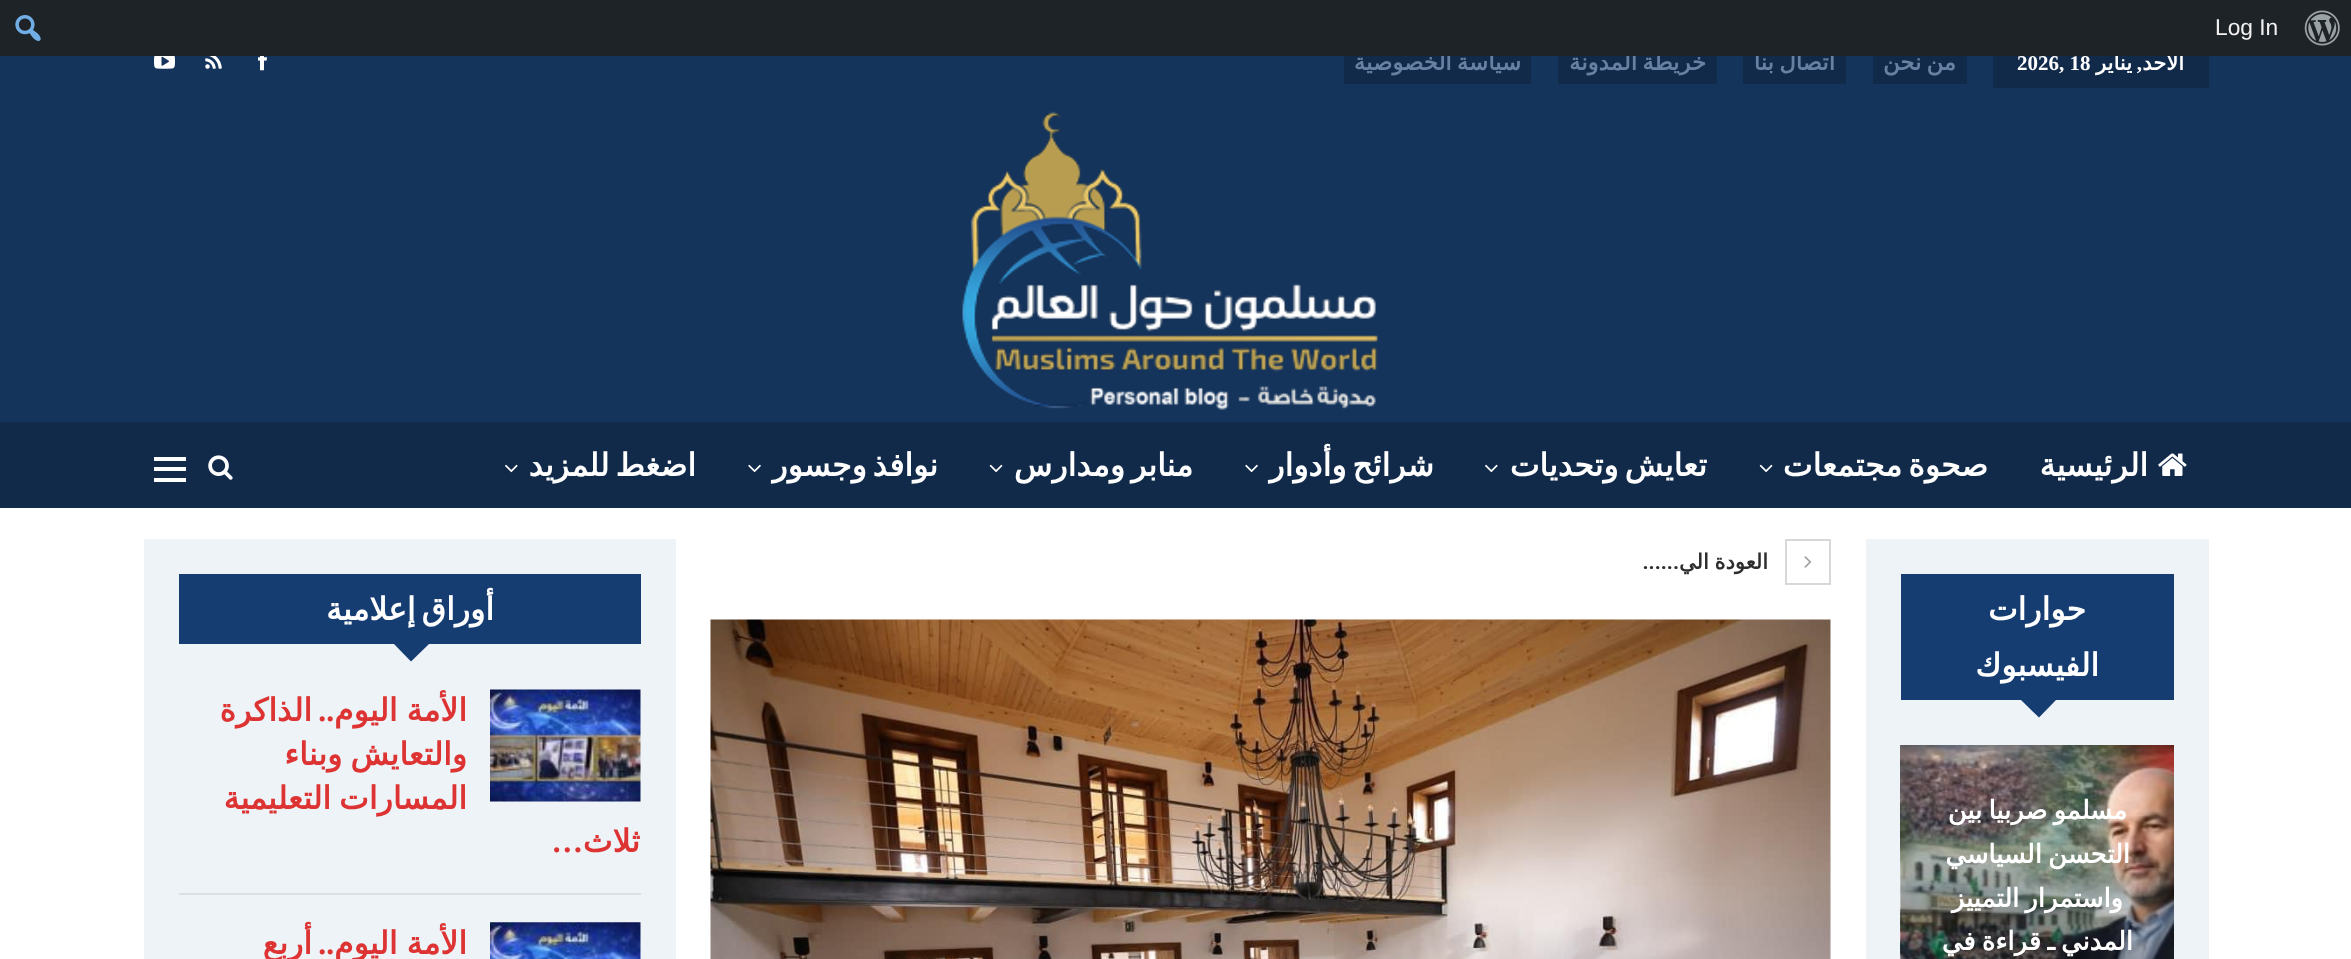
<svg xmlns="http://www.w3.org/2000/svg" width="2351" height="959" viewBox="0 0 2351 959">
  <rect width="100%" height="100%" fill="rgb(255,255,255)"/>
  <rect x="0" y="56" width="2351" height="366" fill="rgb(21,52,92)"/>
  <rect x="1993" y="56" width="216" height="32" fill="rgb(17,42,74)"/>
  <g font-family="DejaVu Sans" font-size="21" font-weight="bold" direction="rtl" fill="rgb(255,255,255)">
    <text x="2184" y="70">الأحد</text>
    <text x="2132" y="70">يناير</text>
  </g>
  <rect x="1743" y="56" width="103" height="28" fill="rgb(17,42,74)"/>
  <text x="1835" y="70" word-spacing="-2" font-family="DejaVu Sans" font-size="22.75" font-weight="bold" direction="rtl" fill="rgb(103,129,163)">اتصال بنا</text>
  <rect x="1558" y="56" width="159" height="28" fill="rgb(17,42,74)"/>
  <text x="1706" y="70" word-spacing="-2" font-family="DejaVu Sans" font-size="22.75" font-weight="bold" direction="rtl" fill="rgb(103,129,163)">خريطة المدونة</text>
  <rect x="1344" y="56" width="187" height="28" fill="rgb(17,42,74)"/>
  <text x="1521" y="70" word-spacing="-2" font-family="DejaVu Sans" font-size="22.75" font-weight="bold" direction="rtl" fill="rgb(103,129,163)">سياسة الخصوصية</text>
  <rect x="0" y="0" width="2351" height="56" fill="rgb(29,35,39)"/>
  <image x="2304" y="10" width="36" height="36" href="pic1.png"/>
  <text x="2215" y="35" font-family="Liberation Sans" font-size="22.75" fill="rgb(240,240,241)">Log In</text>
  <image x="15" y="15" width="26" height="26" href="pic2.png"/>
  <text x="2142" y="70" font-family="Liberation Serif" font-size="21" font-weight="bold" direction="rtl" fill="rgb(255,255,255)">,</text>
  <text x="2017" y="70" font-family="Liberation Serif" font-size="21" font-weight="bold" fill="rgb(255,255,255)">2026, 18</text>
  <rect x="1873" y="56" width="94" height="28" fill="rgb(17,42,74)"/>
  <text x="1956" y="70" word-spacing="-2" font-family="DejaVu Sans" font-size="22.75" font-weight="bold" direction="rtl" fill="rgb(103,129,163)">من نحن</text>
  <image x="258" y="56" width="9" height="15" href="pic3.png"/>
  <image x="205" y="56" width="17" height="13" href="pic4.png"/>
  <image x="154" y="56" width="21" height="13" href="pic5.png"/>
  <image x="962" y="111" width="416" height="299" href="pic6.png"/>
  <rect x="0" y="422" width="2351" height="86" fill="rgb(17,42,74)"/>
  <image x="2158" y="453" width="29" height="23" href="pic7.png"/>
  <g font-family="DejaVu Sans" font-size="31.5" font-weight="bold" direction="rtl" fill="rgb(255,255,255)">
    <text x="2148" y="476">الرئيسية</text>
    <text x="1988" y="476" word-spacing="-4">صحوة مجتمعات</text>
  </g>
  <image x="1759" y="464" width="14" height="9" href="pic8.png"/>
  <text x="1707" y="476" word-spacing="-4" font-family="DejaVu Sans" font-size="31.5" font-weight="bold" direction="rtl" fill="rgb(255,255,255)">تعايش وتحديات</text>
  <image x="1485" y="464" width="13" height="9" href="pic9.png"/>
  <text x="1434" y="476" word-spacing="-4" font-family="DejaVu Sans" font-size="31.5" font-weight="bold" direction="rtl" fill="rgb(255,255,255)">شرائح وأدوار</text>
  <image x="1245" y="464" width="13" height="9" href="pic10.png"/>
  <text x="1193" y="476" word-spacing="-4" font-family="DejaVu Sans" font-size="31.5" font-weight="bold" direction="rtl" fill="rgb(255,255,255)">منابر ومدارس</text>
  <image x="989" y="464" width="14" height="9" href="pic8.png"/>
  <text x="938" y="476" word-spacing="-4" font-family="DejaVu Sans" font-size="31.5" font-weight="bold" direction="rtl" fill="rgb(255,255,255)">نوافذ وجسور</text>
  <image x="748" y="464" width="13" height="9" href="pic10.png"/>
  <text x="696" y="476" word-spacing="-4" font-family="DejaVu Sans" font-size="31.5" font-weight="bold" direction="rtl" fill="rgb(255,255,255)">اضغط للمزيد</text>
  <image x="505" y="464" width="13" height="9" href="pic9.png"/>
  <image x="208" y="455" width="25" height="25" href="pic11.png"/>
  <rect x="154" y="467" width="32" height="4" fill="rgb(255,255,255)"/>
  <rect x="154" y="457" width="32" height="4" fill="rgb(255,255,255)"/>
  <rect x="154" y="478" width="32" height="4" fill="rgb(255,255,255)"/>
  <rect x="1786" y="540" width="44" height="44" fill="none" stroke="rgb(216,216,216)" stroke-width="2"/>
  <image x="1804" y="556" width="8" height="12" href="pic12.png"/>
  <text x="1768" y="569" word-spacing="-1" font-family="DejaVu Sans" font-size="21" font-weight="bold" direction="rtl" fill="rgb(45,45,45)">العودة الي</text>
  <text x="1679" y="569" font-family="Roboto" font-size="21" font-weight="bold" direction="rtl" fill="rgb(45,45,45)">......</text>
  <image x="710" y="619" width="1121" height="340" href="pic13.png"/>
  <rect x="1866" y="539" width="343" height="420" fill="rgb(237,243,247)"/>
  <rect x="1901" y="574" width="273" height="126" fill="rgb(21,61,114)"/>
  <g font-family="DejaVu Sans" font-size="31.5" font-weight="bold" direction="rtl" fill="rgb(255,255,255)">
    <text x="2086" y="620">حوارات</text>
    <text x="2099" y="676">الفيسبوك</text>
  </g>
  <path d="M2021 700H2056L2039 717.5Z" fill="rgb(21,61,114)"/>
  <image x="1900" y="745" width="274" height="214" href="pic14.png"/>
  <g font-family="DejaVu Sans" font-size="25.75" font-weight="bold" direction="rtl" fill="rgb(255,255,255)">
    <text x="2127" y="819" word-spacing="-2">مسلمو صربيا بين</text>
    <text x="2130" y="863" word-spacing="-2">التحسن السياسي</text>
    <text x="2123" y="907" word-spacing="-2">واستمرار التمييز</text>
    <text x="2133" y="950" word-spacing="-2">المدني ـ قراءة في</text>
  </g>
  <rect x="144" y="539" width="532" height="420" fill="rgb(237,243,247)"/>
  <rect x="179" y="574" width="462" height="70" fill="rgb(21,61,114)"/>
  <text x="494" y="620" word-spacing="-4" font-family="DejaVu Sans" font-size="31.5" font-weight="bold" direction="rtl" fill="rgb(255,255,255)">أوراق إعلامية</text>
  <path d="M394 644H429L411 661.5Z" fill="rgb(21,61,114)"/>
  <rect x="179" y="893" width="462" height="2" fill="rgb(218,224,227)"/>
  <image x="490" y="689" width="151" height="113" href="pic15.png"/>
  <text x="467" y="721" word-spacing="-1" font-family="DejaVu Sans" font-size="31.5" font-weight="bold" direction="rtl" fill="rgb(221,51,51)">الأمة اليوم</text>
  <text x="334" y="721" font-family="Liberation Serif" font-size="31.5" font-weight="bold" direction="rtl" fill="rgb(221,51,51)">..</text>
  <g font-family="DejaVu Sans" font-size="31.5" font-weight="bold" direction="rtl" fill="rgb(221,51,51)">
    <text x="312" y="721">الذاكرة</text>
    <text>
      <tspan x="467" y="765" word-spacing="-2">والتعايش وبناء</tspan>
      <tspan x="467" y="809" word-spacing="-2">المسارات التعليمية</tspan>
    </text>
    <text x="640" y="852">ثلاث</text>
  </g>
  <text x="583" y="852" font-family="Liberation Serif" font-size="31.5" font-weight="bold" direction="rtl" fill="rgb(221,51,51)">…</text>
  <image x="490" y="922" width="151" height="37" href="pic16.png"/>
  <text x="467" y="954" word-spacing="-1" font-family="DejaVu Sans" font-size="31.5" font-weight="bold" direction="rtl" fill="rgb(221,51,51)">الأمة اليوم</text>
  <text x="334" y="954" font-family="Liberation Serif" font-size="31.5" font-weight="bold" direction="rtl" fill="rgb(221,51,51)">..</text>
  <text x="312" y="954" font-family="DejaVu Sans" font-size="31.5" font-weight="bold" direction="rtl" fill="rgb(221,51,51)">أربع</text>
</svg>
